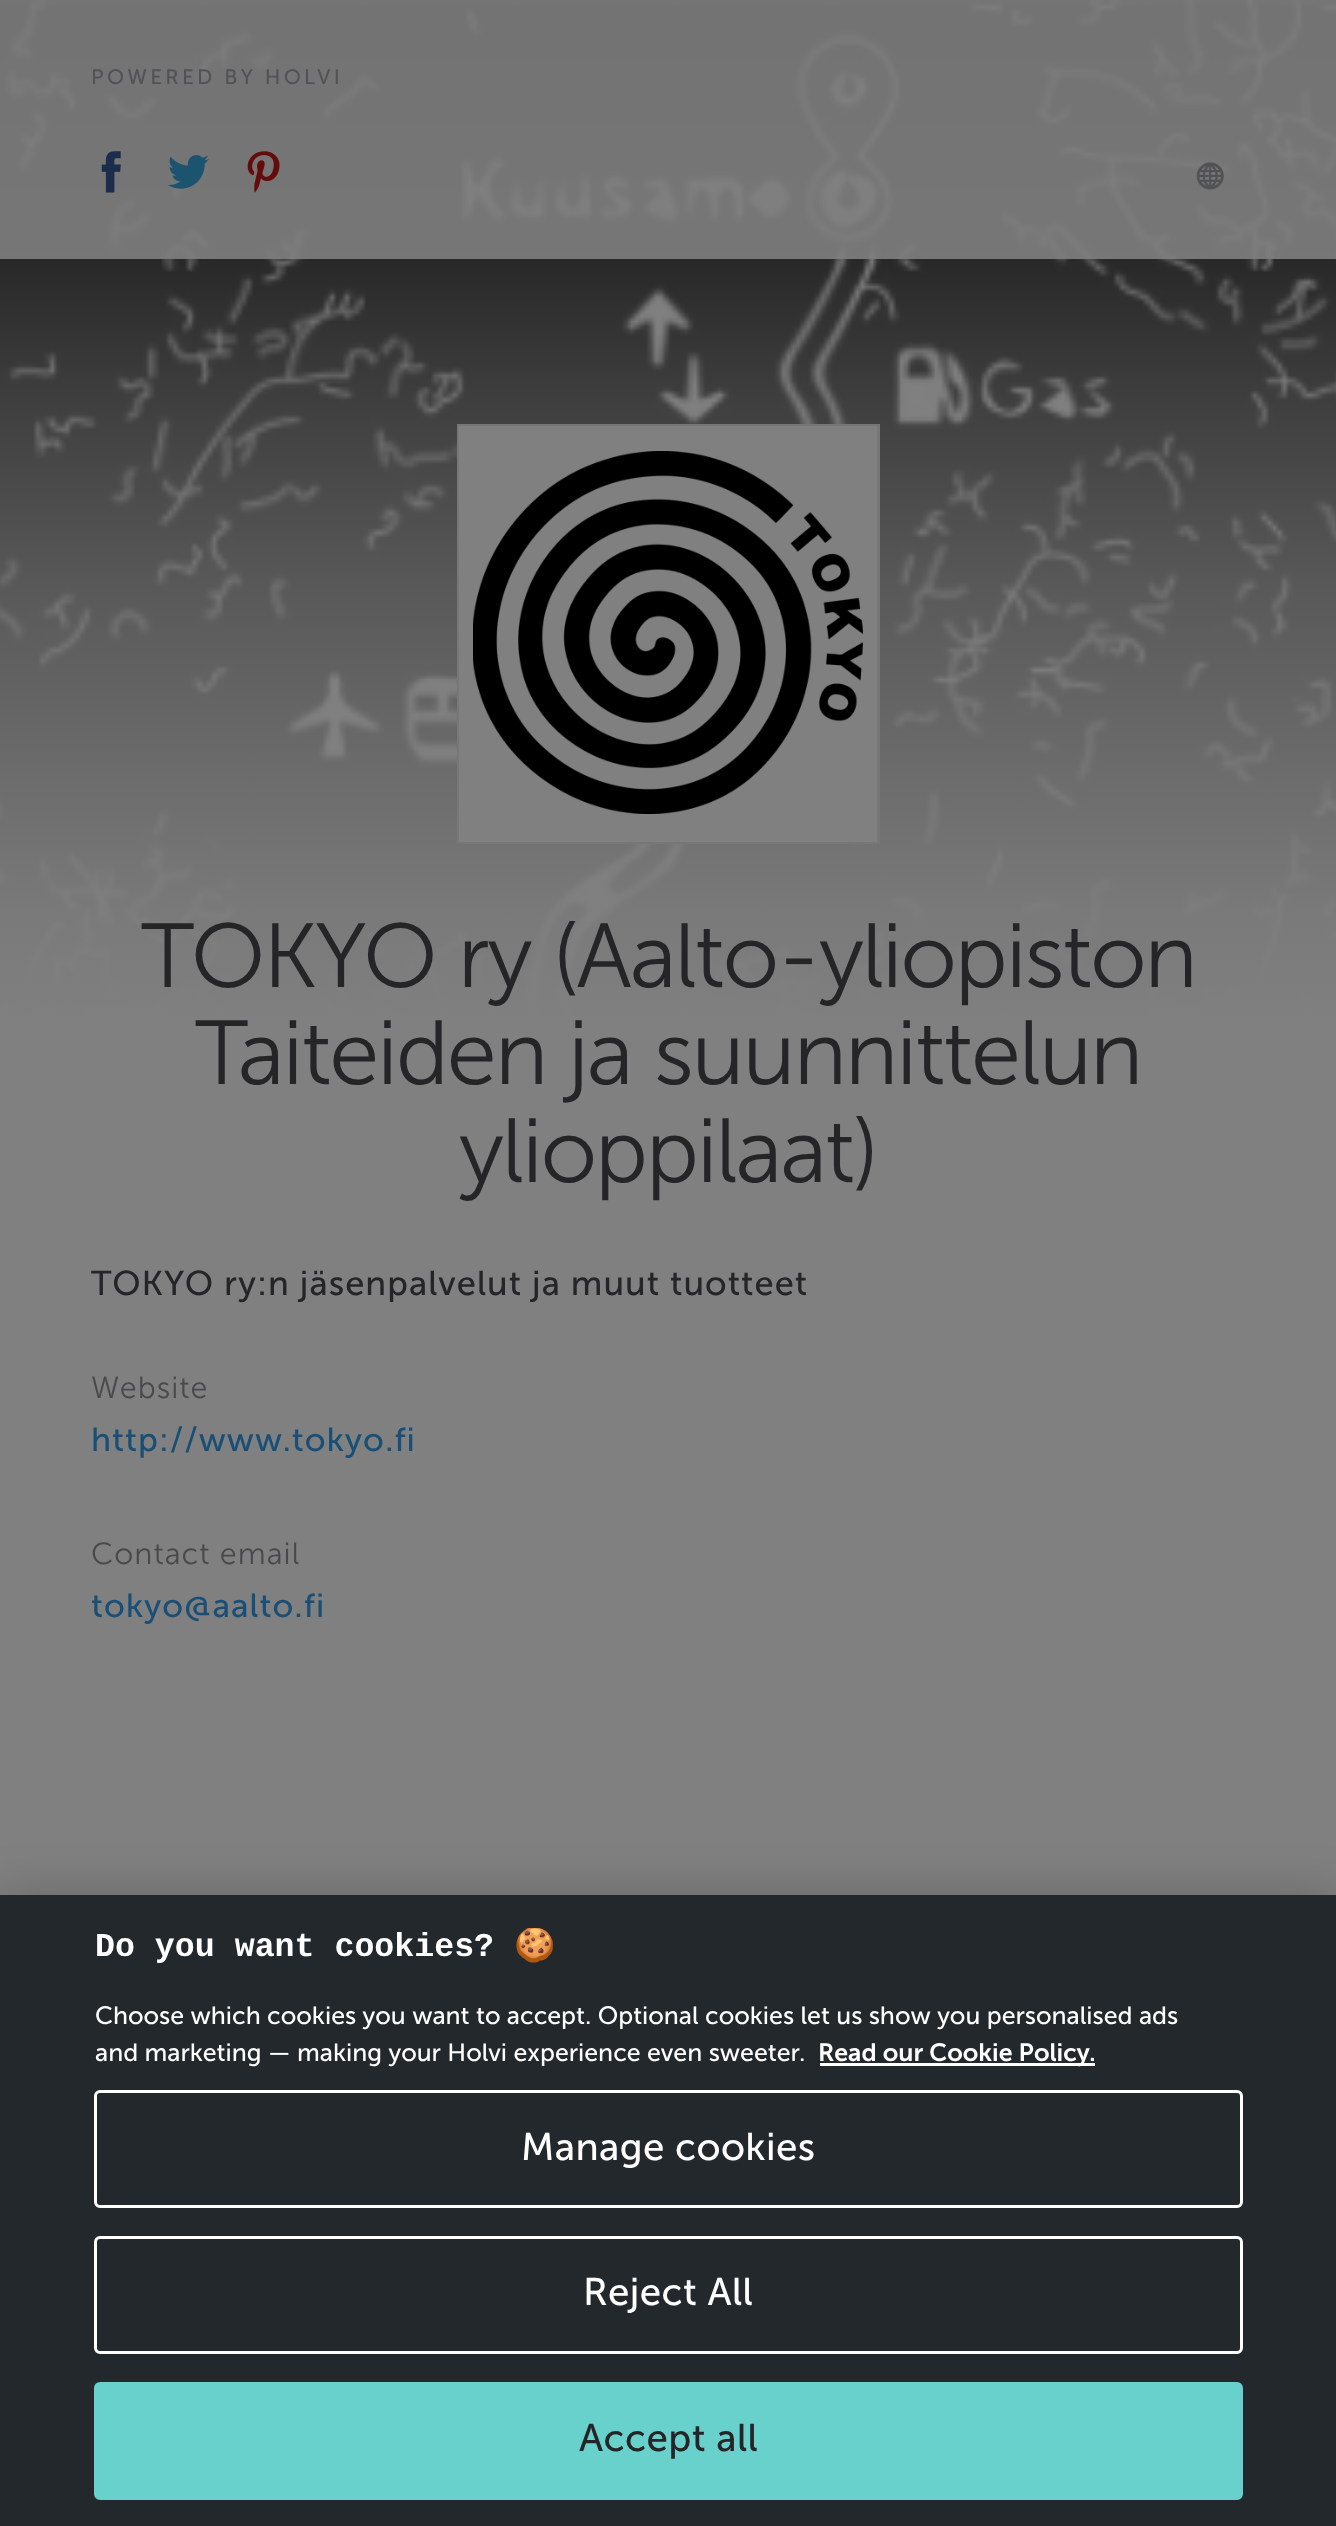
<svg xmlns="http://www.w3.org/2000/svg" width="1336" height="2526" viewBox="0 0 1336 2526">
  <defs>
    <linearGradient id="g1" gradientUnits="userSpaceOnUse" x1="668" y1="0" x2="668" y2="1029"><stop offset="0" stop-color="rgb(128,128,128)" stop-opacity="0"/><stop offset="0.4" stop-color="rgb(128,128,128)" stop-opacity="0.5"/><stop offset="0.58" stop-color="rgb(128,128,128)" stop-opacity="0.7"/><stop offset="0.8" stop-color="rgb(128,128,128)" stop-opacity="0.88"/><stop offset="0.89" stop-color="rgb(128,128,128)" stop-opacity="0.95"/><stop offset="1" stop-color="rgb(128,128,128)"/></linearGradient>
    <clipPath id="clip1"><rect x="94" y="1928" width="1089" height="146"/></clipPath>
  </defs>
  <rect width="100%" height="100%" fill="rgb(128,128,128)"/>
  <image x="0" y="0" width="1336" height="1016" href="pic1.png"/>
  <rect x="0" y="18" width="1336" height="998" fill="url(#g1)"/>
  <rect x="0" y="0" width="1336" height="259" fill="rgba(128,128,128,0.9)"/>
  <text x="91" y="84" font-family="Museo Sans" font-size="20.75" letter-spacing="3.3" fill="rgb(81,82,85)">POWERED BY HOLVI</text>
  <image x="101" y="151" width="20" height="42" href="pic2.png"/>
  <image x="168" y="155" width="41" height="34" href="pic3.png"/>
  <image x="247" y="151" width="33" height="42" href="pic4.png"/>
  <image x="1196" y="162" width="28" height="28" href="pic5.png"/>
  <rect x="458.5" y="425.5" width="420" height="417" fill="none" stroke="rgb(119,119,120)" stroke-width="3"/>
  <rect x="473" y="440" width="390" height="388" fill="rgb(128,128,128)"/>
  <image x="473" y="451" width="390" height="363" href="pic6.png"/>
  <rect x="466" y="433" width="404" height="402" fill="none" stroke="rgb(128,128,128)" stroke-width="14"/>
  <g font-family="Museo Sans" font-size="90.5" font-weight="300" letter-spacing="-2.25" fill="rgb(37,37,40)">
    <text x="141" y="987">TOKYO ry (Aalto-yliopiston</text>
    <text x="195" y="1084">Taiteiden ja suunnittelun</text>
    <text x="459" y="1182">ylioppilaat)</text>
  </g>
  <text x="91" y="1295" font-family="Museo Sans" font-size="34.5" letter-spacing="1.05" fill="rgb(37,37,40)">TOKYO ry:n jäsenpalvelut ja muut tuotteet</text>
  <text x="91" y="1398" font-family="Museo Sans" font-size="30.5" font-weight="300" letter-spacing="1.05" fill="rgb(73,73,75)">Website</text>
  <text x="91" y="1451" font-family="Museo Sans" font-size="33.25" letter-spacing="1.05" fill="rgb(25,79,118)">http://www.tokyo.fi</text>
  <text x="91" y="1564" font-family="Museo Sans" font-size="30.5" font-weight="300" letter-spacing="1.05" fill="rgb(73,73,75)">Contact email</text>
  <text x="91" y="1617" font-family="Museo Sans" font-size="33.25" letter-spacing="1.05" fill="rgb(25,79,118)">tokyo@aalto.fi</text>
  <rect x="0" y="1895" width="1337" height="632" fill="rgba(0,0,0,0.2)" filter="blur(25px)"/>
  <rect x="0" y="1895" width="1336" height="631" fill="rgb(35,40,45)"/>
  <text x="95" y="1956" font-family="Liberation Mono" font-size="33.25" font-weight="bold" fill="rgb(255,255,255)">Do you want cookies?</text>
  <g clip-path="url(#clip1)">
    <text x="514" y="1956" font-family="Noto Color Emoji" font-size="33.25" font-weight="bold" fill="rgb(255,255,255)">🍪</text>
  </g>
  <g font-family="Museo Sans" font-size="24.95" fill="rgb(255,255,255)">
    <text>
      <tspan x="95" y="2024">Choose which cookies you want to accept. Optional cookies let us show you personalised ads</tspan>
      <tspan x="95" y="2061">and marketing — making your Holvi experience even sweeter.</tspan>
    </text>
  </g>
  <rect x="820" y="2063" width="275" height="3" fill="rgb(255,255,255)"/>
  <text x="818" y="2061" font-family="Museo Sans" font-size="24.95" font-weight="600" fill="rgb(255,255,255)">Read our Cookie Policy.</text>
  <rect x="95.5" y="2091.5" width="1146" height="115" rx="4.5" fill="none" stroke="rgb(255,255,255)" stroke-width="3"/>
  <text x="521" y="2160" font-family="Museo Sans" font-size="38.5" letter-spacing="0.4" fill="rgb(255,255,255)">Manage cookies</text>
  <rect x="95.5" y="2237.5" width="1146" height="115" rx="4.5" fill="none" stroke="rgb(255,255,255)" stroke-width="3"/>
  <text x="583" y="2305" font-family="Museo Sans" font-size="38.5" letter-spacing="0.4" fill="rgb(255,255,255)">Reject All</text>
  <rect x="95.5" y="2383.5" width="1146" height="115" rx="4.5" fill="rgb(105,209,204)" stroke="rgb(105,209,204)" stroke-width="3"/>
  <text x="579" y="2451" font-family="Museo Sans" font-size="38.5" letter-spacing="0.4" fill="rgb(37,37,40)">Accept all</text>
</svg>
